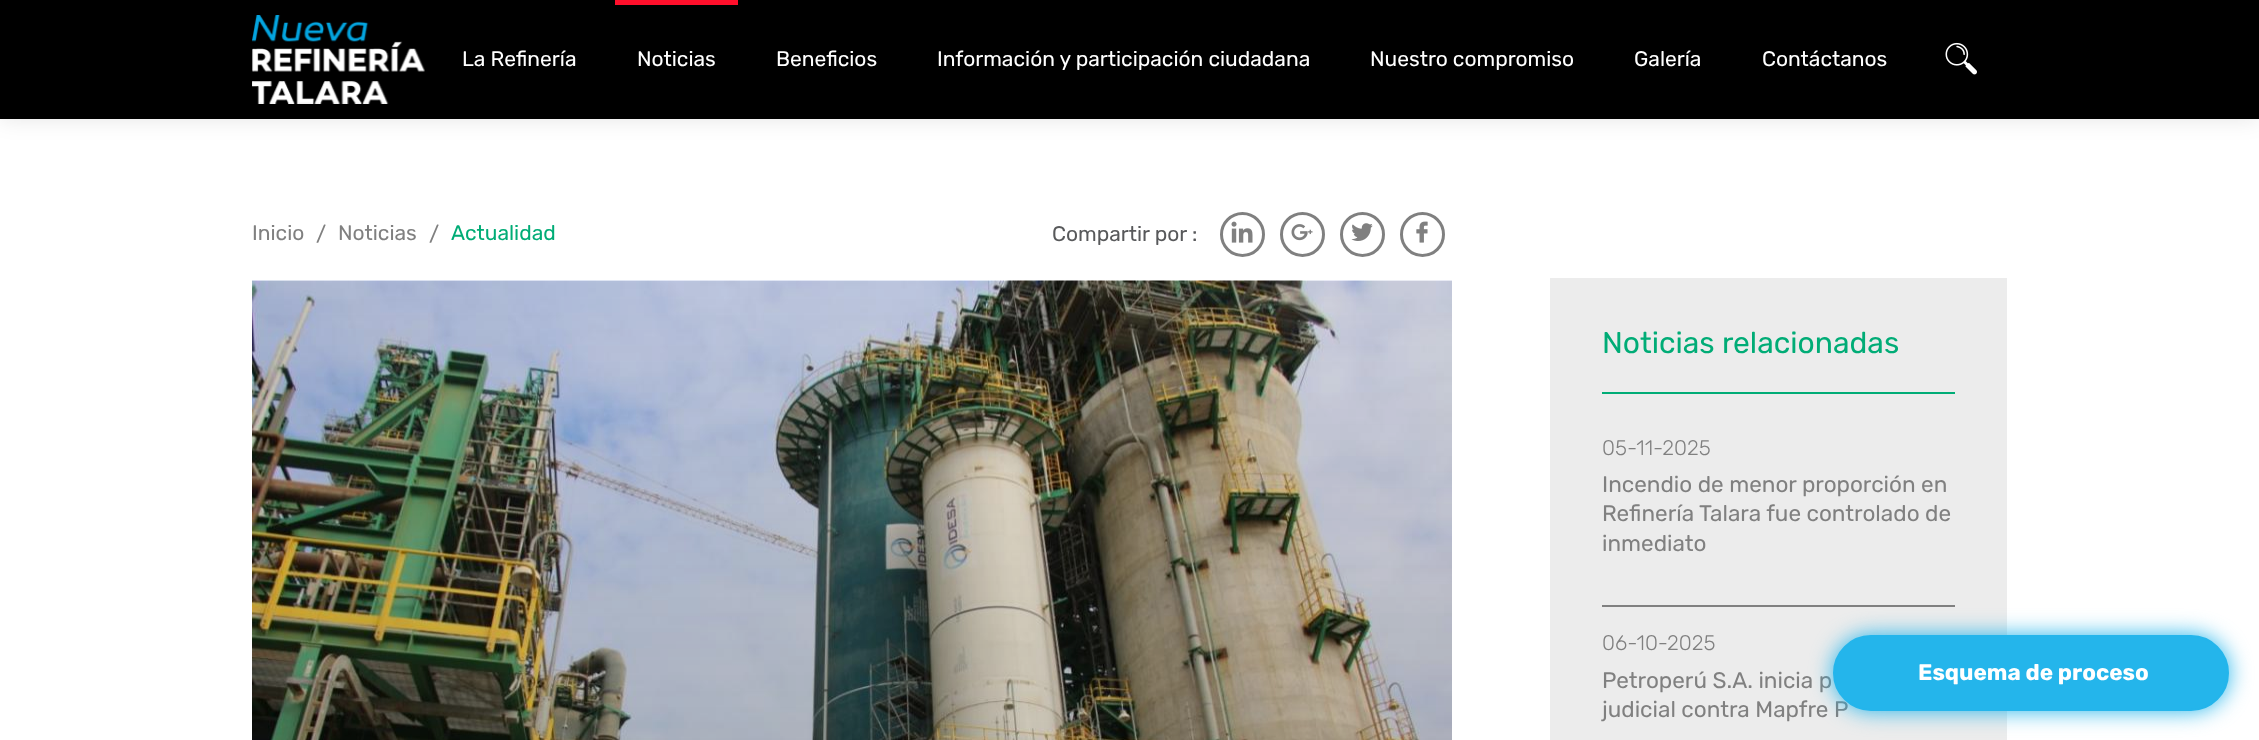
<svg xmlns="http://www.w3.org/2000/svg" width="2259" height="740" viewBox="0 0 2259 740">
  <rect width="100%" height="100%" fill="rgb(255,255,255)"/>
  <rect x="0" y="0" width="2259" height="119" fill="rgba(0,0,0,0.1)" filter="blur(11px)"/>
  <rect x="0" y="0" width="2259" height="119" fill="rgb(0,0,0)"/>
  <image x="252" y="15" width="173" height="89" href="pic1.png"/>
  <text x="462" y="66" font-family="Rubik" font-size="21" fill="rgb(255,255,255)">La Refinería</text>
  <rect x="615" y="0" width="123" height="5" fill="rgb(255,15,43)"/>
  <g font-family="Rubik" font-size="21" fill="rgb(255,255,255)">
    <text x="637" y="66">Noticias</text>
    <text x="776" y="66">Beneficios</text>
    <text x="937" y="66">Información y participación ciudadana</text>
    <text x="1370" y="66">Nuestro compromiso</text>
    <text x="1634" y="66">Galería</text>
    <text x="1762" y="66">Contáctanos</text>
  </g>
  <image x="1945" y="42" width="32" height="33" href="pic2.png"/>
  <g font-family="Rubik" font-size="21" fill="rgb(128,128,128)">
    <text x="252" y="240">Inicio</text>
    <text x="316" y="241">/</text>
    <text x="338" y="240">Noticias</text>
    <text x="429" y="241">/</text>
  </g>
  <text x="451" y="240" font-family="Rubik" font-size="21" fill="rgb(0,172,118)">Actualidad</text>
  <text x="1052" y="241" font-family="Rubik" font-size="21" fill="rgb(88,89,91)">Compartir por :</text>
  <circle cx="1242.5" cy="234.5" r="21" fill="none" stroke="rgb(128,128,128)" stroke-width="3"/>
  <image x="1231" y="221" width="22" height="22" href="pic3.png"/>
  <circle cx="1302.5" cy="234.5" r="21" fill="none" stroke="rgb(128,128,128)" stroke-width="3"/>
  <image x="1291" y="224" width="22" height="17" href="pic4.png"/>
  <circle cx="1362.5" cy="234.5" r="21" fill="none" stroke="rgb(128,128,128)" stroke-width="3"/>
  <image x="1351" y="223" width="22" height="18" href="pic5.png"/>
  <circle cx="1422.5" cy="234.5" r="21" fill="none" stroke="rgb(128,128,128)" stroke-width="3"/>
  <image x="1416" y="221" width="12" height="22" href="pic6.png"/>
  <image x="252" y="280" width="1200" height="460" href="pic7.png"/>
  <rect x="1550" y="278" width="457" height="462" fill="rgb(236,236,236)"/>
  <text x="1602" y="353" font-family="Rubik" font-size="30" fill="rgb(0,172,118)">Noticias relacionadas</text>
  <rect x="1602" y="392" width="353" height="2" fill="rgb(0,172,118)"/>
  <rect x="1602" y="605" width="353" height="2" fill="rgb(128,128,128)"/>
  <text x="1602" y="455" font-family="Rubik" font-size="21" font-weight="300" fill="rgb(128,128,128)">05-11-2025</text>
  <g font-family="Rubik" font-size="22.5" fill="rgb(128,128,128)">
    <text>
      <tspan x="1602" y="492">Incendio de menor proporción en</tspan>
      <tspan x="1602" y="521">Refinería Talara fue controlado de</tspan>
      <tspan x="1602" y="551">inmediato</tspan>
    </text>
  </g>
  <text x="1602" y="650" font-family="Rubik" font-size="21" font-weight="300" fill="rgb(128,128,128)">06-10-2025</text>
  <g font-family="Rubik" font-size="22.5" fill="rgb(128,128,128)">
    <text>
      <tspan x="1602" y="688">Petroperú S.A. inicia p</tspan>
      <tspan x="1602" y="717">judicial contra Mapfre P</tspan>
    </text>
  </g>
  <rect x="1833" y="635" width="396" height="76" rx="38" fill="rgb(36,181,235)" filter="blur(11px)"/>
  <rect x="1834" y="636" width="394" height="74" rx="37" fill="rgb(36,181,235)" stroke="rgb(36,181,235)" stroke-width="2"/>
  <text x="1918" y="680" font-family="Rubik" font-size="22.5" font-weight="bold" fill="rgb(255,255,255)">Esquema de proceso</text>
</svg>
